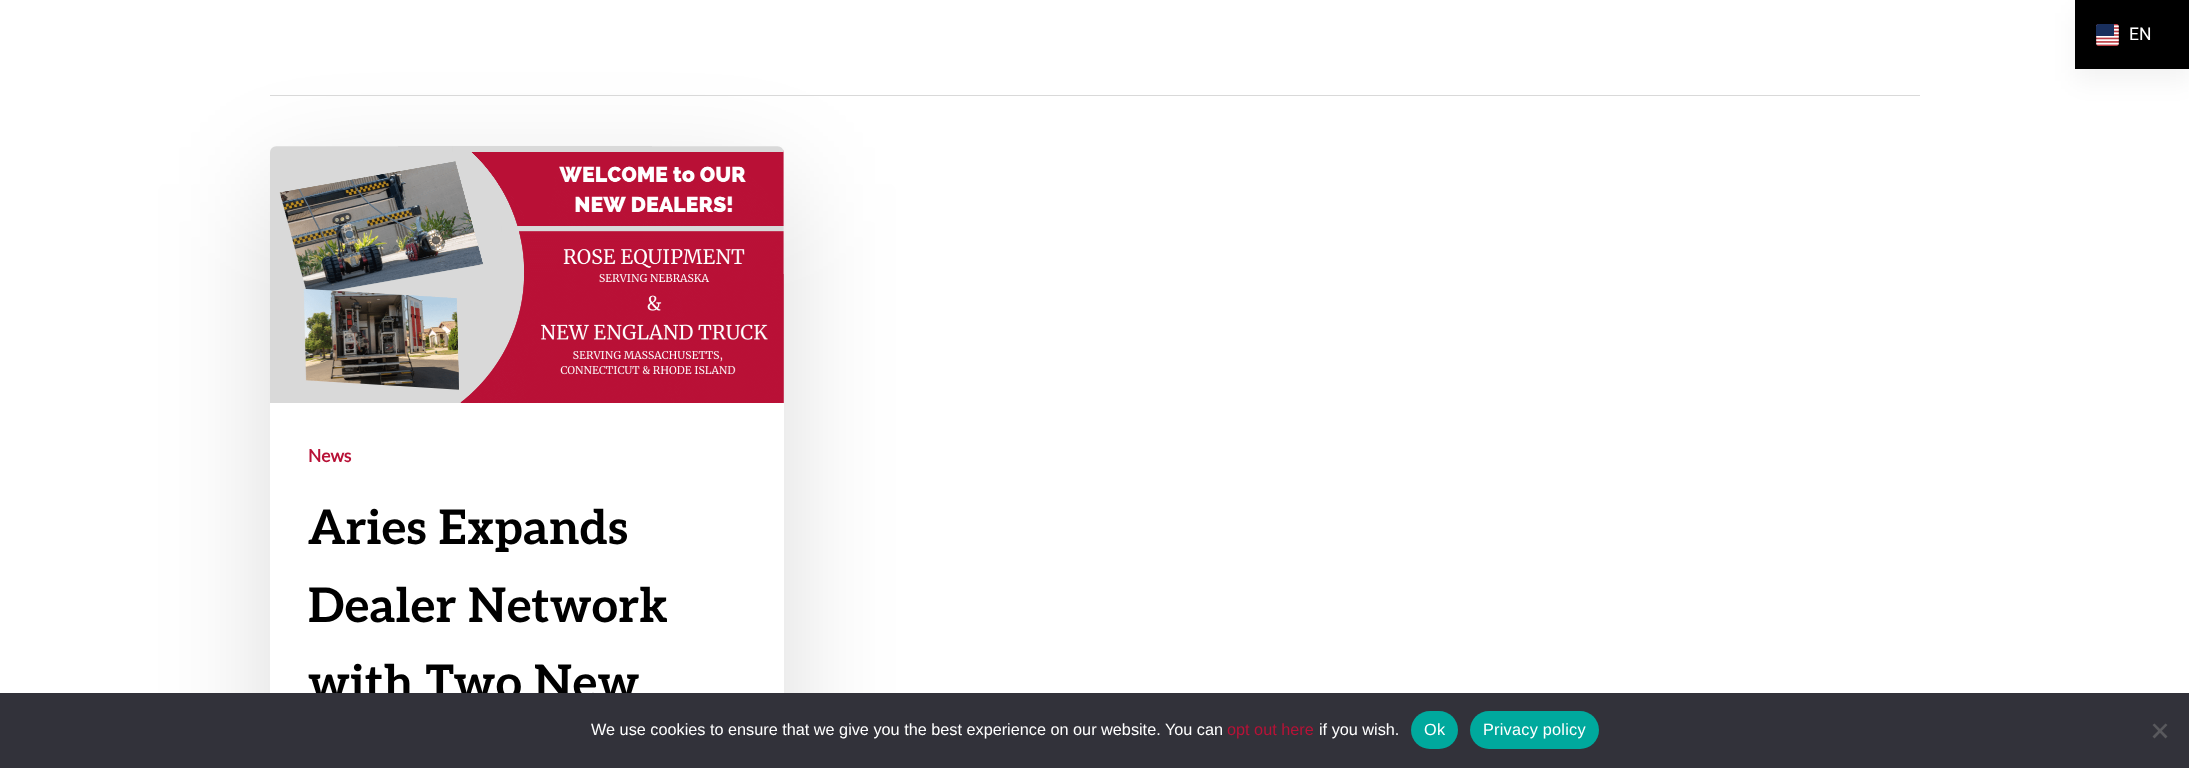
<svg xmlns="http://www.w3.org/2000/svg" width="2189" height="768" viewBox="0 0 2189 768">
  <rect width="100%" height="100%" fill="rgb(255,255,255)"/>
  <rect x="2075" y="13" width="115" height="68" fill="rgba(0,0,0,0.05)" filter="blur(12.5px)"/>
  <rect x="2075" y="0" width="114" height="69" fill="rgb(0,0,0)"/>
  <image x="2096" y="24" width="23" height="22" href="pic1.png"/>
  <text x="2129" y="40" font-family="Roboto" font-size="17.5" fill="rgb(255,255,255)">EN</text>
  <rect x="270" y="184" width="514" height="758" rx="6" fill="rgba(0,0,0,0.14)" filter="blur(56px)"/>
  <rect x="270" y="95" width="1650" height="1" fill="rgb(217,217,217)"/>
  <image x="270" y="146" width="514" height="257" href="pic2.png"/>
  <rect x="270" y="403" width="514" height="290" fill="rgb(255,255,255)"/>
  <text x="308" y="462" font-family="Lato" font-size="17.5" font-weight="bold" fill="rgb(184,18,55)">News</text>
  <g font-family="Aleo" font-size="47.5" font-weight="bold" fill="rgb(0,0,0)">
    <text>
      <tspan x="308" y="544">Aries Expands</tspan>
      <tspan x="308" y="622">Dealer Network</tspan>
      <tspan x="308" y="699">with Two New</tspan>
    </text>
  </g>
  <rect x="0" y="693" width="2189" height="75" fill="rgb(50,50,58)"/>
  <text x="591" y="735" font-family="Liberation Sans" font-size="16.25" fill="rgb(255,255,255)">We use cookies to ensure that we give you the best experience on our website. You can</text>
  <text x="1227" y="735" font-family="Liberation Sans" font-size="16.25" fill="rgb(184,18,55)">opt out here</text>
  <text x="1319" y="735" font-family="Liberation Sans" font-size="16.25" fill="rgb(255,255,255)">if you wish.</text>
  <rect x="1411" y="711" width="47" height="38" rx="19" fill="rgb(0,169,157)"/>
  <text x="1424" y="735" font-family="Liberation Sans" font-size="16.25" letter-spacing="0.25" fill="rgb(255,255,255)">Ok</text>
  <rect x="1470" y="711" width="129" height="38" rx="19" fill="rgb(0,169,157)"/>
  <text x="1483" y="735" font-family="Liberation Sans" font-size="16.25" letter-spacing="0.25" fill="rgb(255,255,255)">Privacy policy</text>
  <path d="M2165.5 723.5L2167.5 725L2154.5 738.5L2152.5 736.5Z" fill="rgb(89,89,93)"/>
  <path d="M2152.5 725L2154.5 723.5L2167.5 736.5L2165.5 738.5Z" fill="rgb(89,89,93)"/>
</svg>
